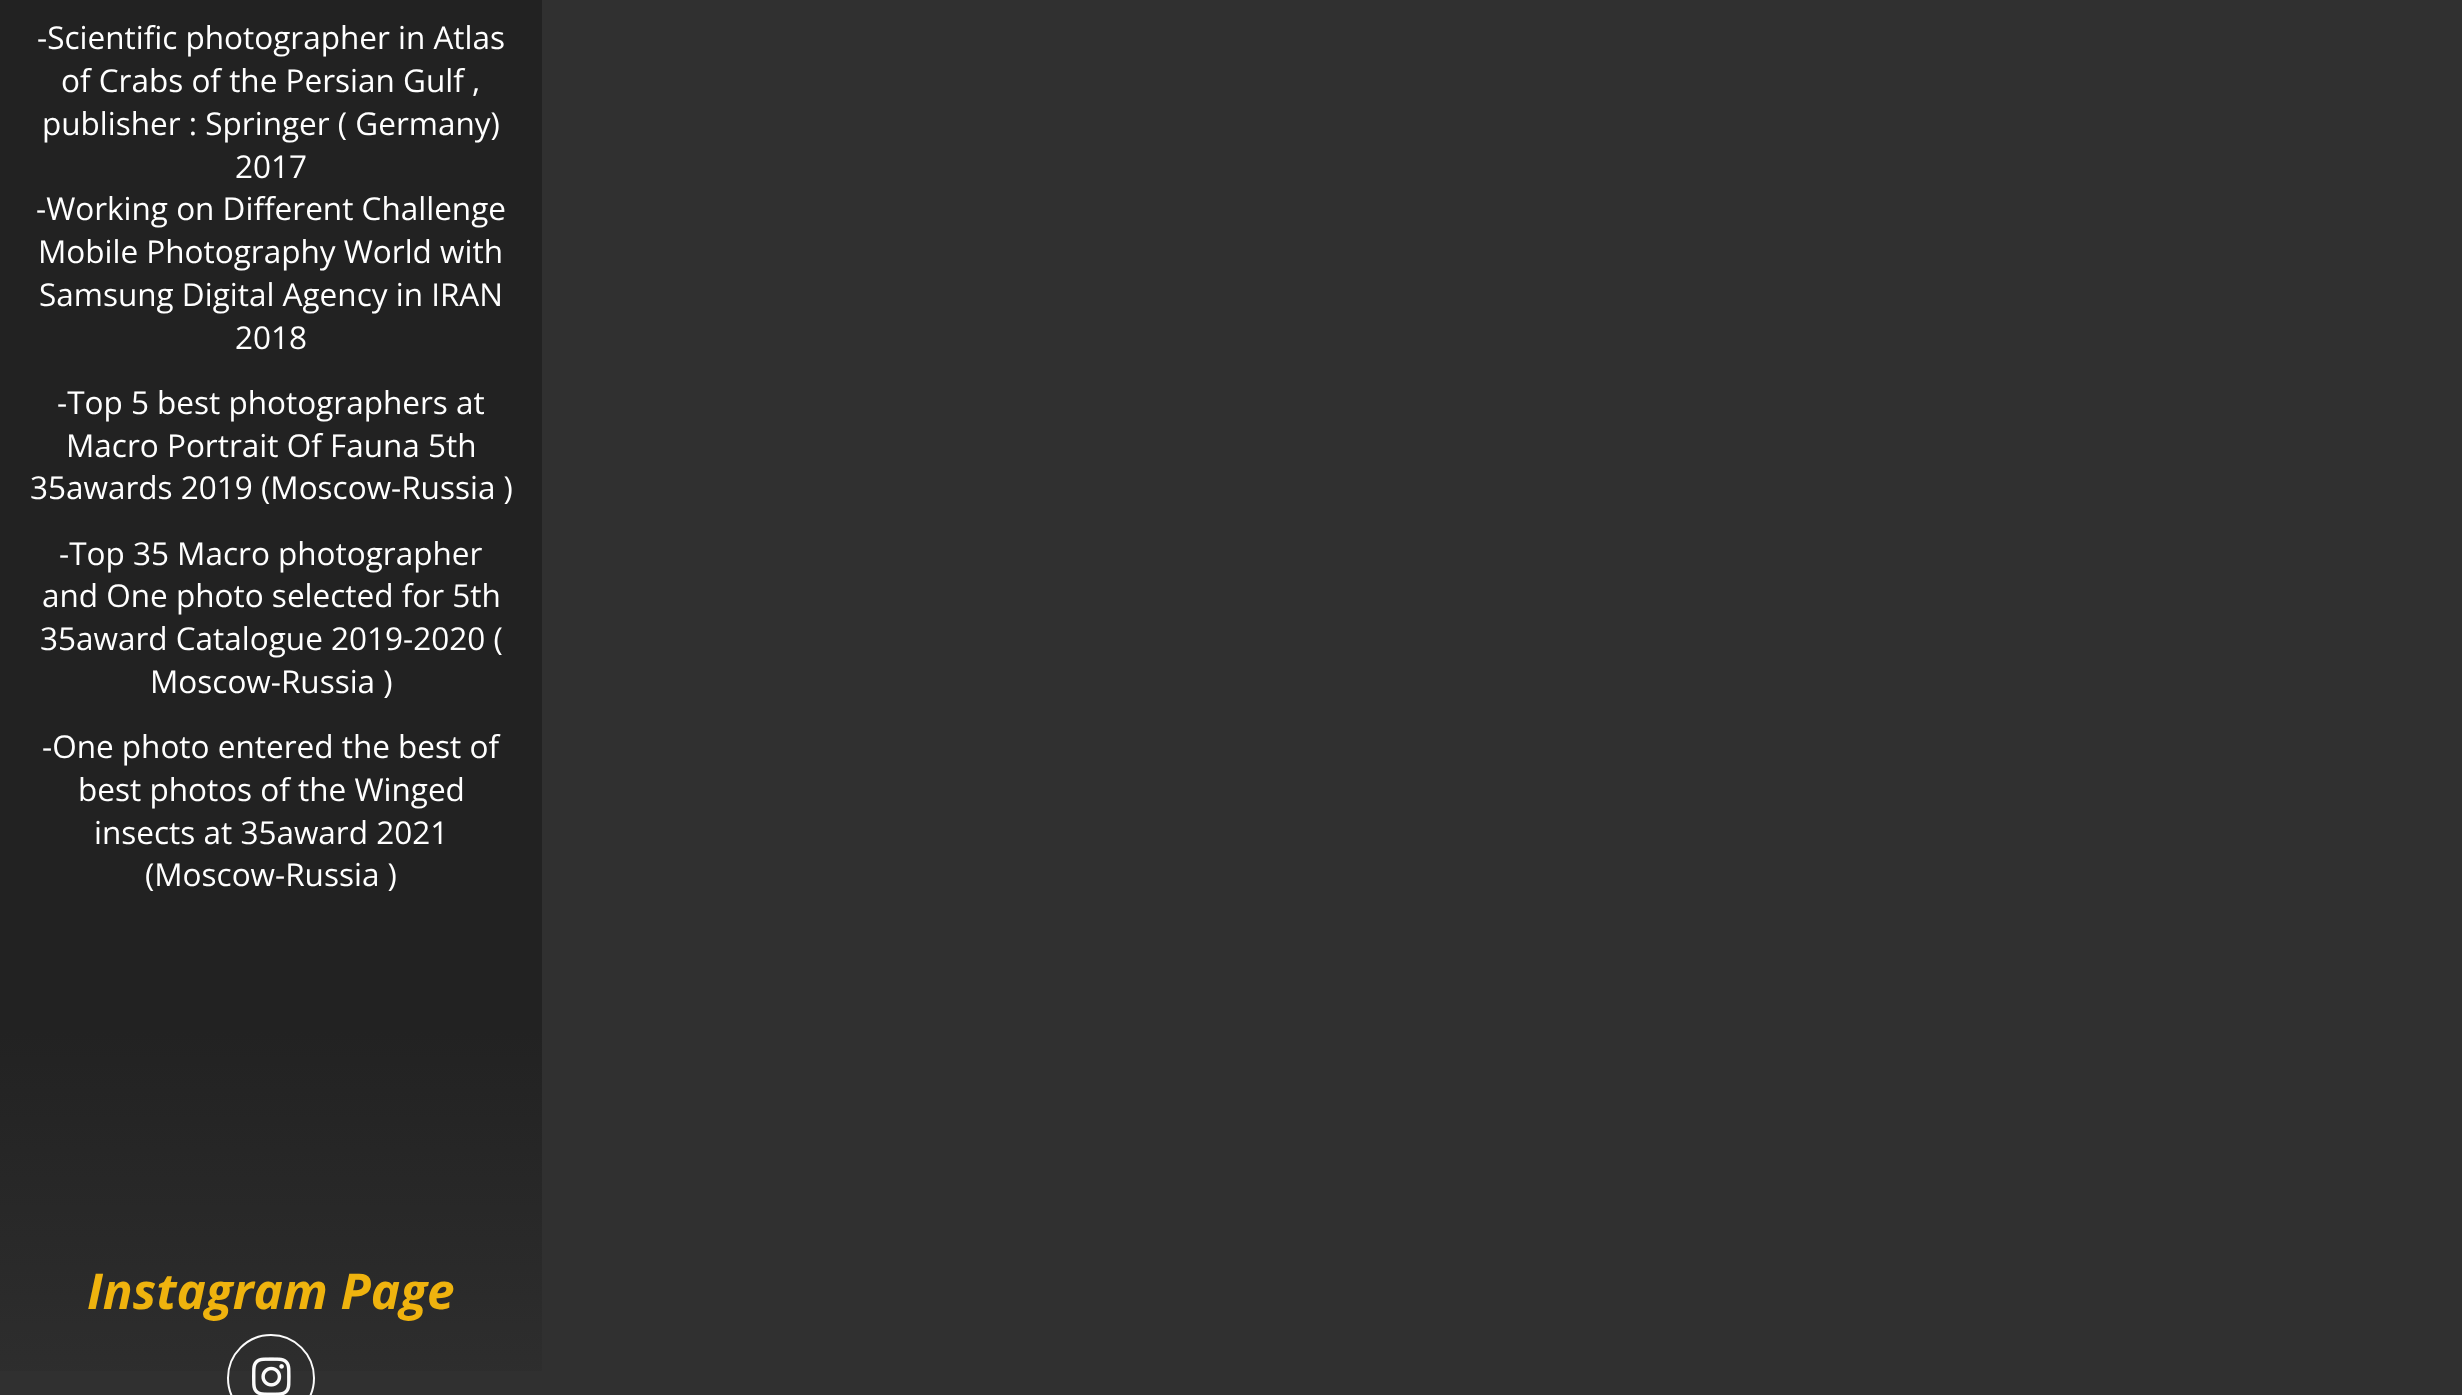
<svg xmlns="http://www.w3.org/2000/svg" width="2462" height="1395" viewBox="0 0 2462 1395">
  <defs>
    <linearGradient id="g1" gradientUnits="userSpaceOnUse" x1="271" y1="1031" x2="271" y2="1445"><stop offset="0" stop-color="rgb(34,34,34)"/><stop offset="1" stop-color="rgb(48,48,48)"/></linearGradient>
  </defs>
  <rect width="100%" height="100%" fill="rgb(48,48,48)"/>
  <rect x="0" y="0" width="542" height="1031" fill="rgb(34,34,34)"/>
  <g font-family="Open Sans" font-size="31.5" fill="rgb(255,255,255)">
    <text x="37" y="49">-Scientific photographer in Atlas</text>
    <text x="61" y="92">of Crabs of the Persian Gulf ,</text>
    <text x="42" y="135">publisher : Springer ( Germany)</text>
    <text x="235" y="178">2017</text>
    <text x="36" y="220">-Working on Different Challenge</text>
    <text x="38" y="263">Mobile Photography World with</text>
    <text x="39" y="306">Samsung Digital Agency in IRAN</text>
    <text x="235" y="349">2018</text>
    <text x="57" y="414">-Top 5 best photographers at</text>
    <text x="66" y="457">Macro Portrait Of Fauna 5th</text>
    <text x="30" y="499">35awards 2019 (Moscow-Russia )</text>
    <text x="59" y="565">-Top 35 Macro photographer</text>
    <text x="42" y="607">and One photo selected for 5th</text>
    <text x="40" y="650">35award Catalogue 2019-2020 (</text>
    <text x="150" y="693">Moscow-Russia )</text>
    <text x="42" y="758">-One photo entered the best of</text>
    <text x="78" y="801">best photos of the Winged</text>
    <text x="94" y="844">insects at 35award 2021</text>
    <text x="145" y="886">(Moscow-Russia )</text>
  </g>
  <rect x="0" y="1031" width="542" height="340" fill="url(#g1)"/>
  <text x="87" y="1309" font-family="Open Sans" font-size="49.5" font-weight="bold" font-style="italic" fill="rgb(239,179,14)">Instagram Page</text>
  <circle cx="271" cy="1378" r="43" fill="none" stroke="rgb(251,251,251)" stroke-width="2"/>
  <image x="252" y="1357" width="39" height="38" href="pic1.png"/>
</svg>
